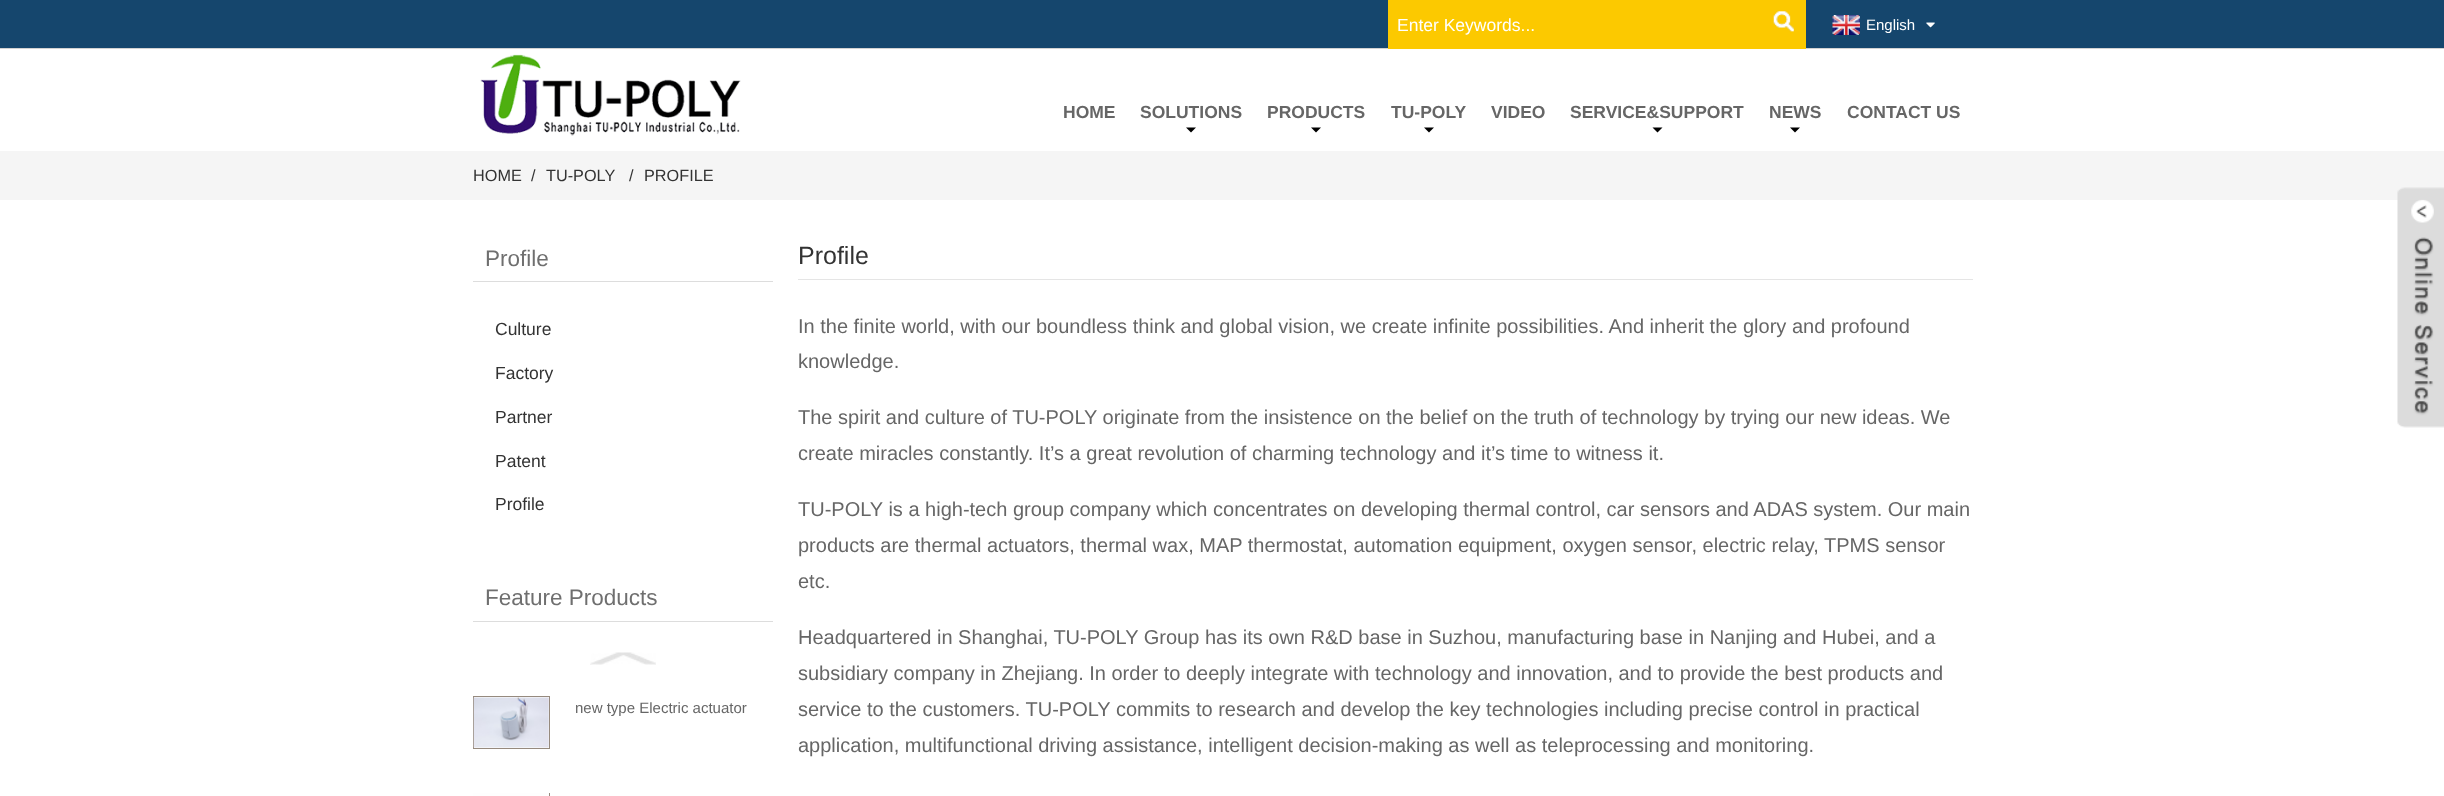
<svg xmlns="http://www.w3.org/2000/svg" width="2444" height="796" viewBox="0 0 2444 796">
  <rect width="100%" height="100%" fill="rgb(255,255,255)"/>
  <rect x="0" y="0" width="2444" height="48" fill="rgb(21,70,109)"/>
  <rect x="0" y="48" width="2444" height="1" fill="rgb(210,210,210)"/>
  <rect x="1388" y="0" width="418" height="49" fill="rgb(252,201,0)"/>
  <text x="1397" y="31" font-family="Liberation Sans" font-size="17.5" fill="rgb(255,255,255)">Enter Keywords...</text>
  <image x="1773" y="11" width="21" height="21" href="pic1.png"/>
  <image x="1832" y="15" width="28" height="20" href="pic2.png"/>
  <text x="1866" y="30" font-family="Liberation Sans" font-size="15" fill="rgb(255,255,255)">English</text>
  <image x="1926" y="22" width="9" height="6" href="pic3.png"/>
  <image x="480" y="54" width="261" height="82" href="pic4.png"/>
  <g font-family="Liberation Sans" font-size="17.5" font-weight="bold" fill="rgb(102,102,102)">
    <text x="1063" y="118">HOME</text>
    <text x="1140" y="118">SOLUTIONS</text>
  </g>
  <path d="M1186 127.5H1196L1191 132.5Z" fill="rgb(0,0,0)"/>
  <text x="1267" y="118" font-family="Liberation Sans" font-size="17.5" font-weight="bold" fill="rgb(102,102,102)">PRODUCTS</text>
  <path d="M1311 127.5H1321L1316 132.5Z" fill="rgb(0,0,0)"/>
  <text x="1391" y="118" font-family="Liberation Sans" font-size="17.5" font-weight="bold" fill="rgb(102,102,102)">TU-POLY</text>
  <path d="M1424 127.5H1434L1429 132.5Z" fill="rgb(0,0,0)"/>
  <g font-family="Liberation Sans" font-size="17.5" font-weight="bold" fill="rgb(102,102,102)">
    <text x="1491" y="118">VIDEO</text>
    <text x="1570" y="118">SERVICE&amp;SUPPORT</text>
  </g>
  <path d="M1652.5 127.5H1662.5L1657.5 132.5Z" fill="rgb(0,0,0)"/>
  <text x="1769" y="118" font-family="Liberation Sans" font-size="17.5" font-weight="bold" fill="rgb(102,102,102)">NEWS</text>
  <path d="M1790 127.5H1800L1795 132.5Z" fill="rgb(0,0,0)"/>
  <text x="1847" y="118" font-family="Liberation Sans" font-size="17.5" font-weight="bold" fill="rgb(102,102,102)">CONTACT US</text>
  <rect x="0" y="151" width="2444" height="49" fill="rgb(245,245,245)"/>
  <g font-family="Liberation Sans" font-size="16.25" fill="rgb(51,51,51)">
    <text x="473" y="181">HOME</text>
    <text x="531" y="181">/</text>
    <text x="546" y="181">TU-POLY</text>
    <text x="629" y="181">/</text>
    <text x="644" y="181">PROFILE</text>
  </g>
  <rect x="473" y="281" width="300" height="1" fill="rgb(221,221,221)"/>
  <text x="485" y="266" font-family="Liberation Sans" font-size="22.5" fill="rgb(111,111,111)">Profile</text>
  <g font-family="Liberation Sans" font-size="17.5" fill="rgb(51,51,51)">
    <text x="495" y="335">Culture</text>
    <text x="495" y="379">Factory</text>
    <text x="495" y="423">Partner</text>
    <text x="495" y="467">Patent</text>
    <text x="495" y="510">Profile</text>
  </g>
  <rect x="473" y="621" width="300" height="1" fill="rgb(221,221,221)"/>
  <text x="485" y="605" font-family="Liberation Sans" font-size="22.5" fill="rgb(111,111,111)">Feature Products</text>
  <image x="590" y="652" width="66" height="13" href="pic5.png"/>
  <rect x="473.5" y="696.5" width="76" height="52" fill="none" stroke="rgb(150,138,126)"/>
  <image x="473" y="697" width="76" height="51" href="pic6.png"/>
  <text x="575" y="713" font-family="Liberation Sans" font-size="15" fill="rgb(102,102,102)">new type Electric actuator</text>
  <rect x="473.5" y="793.5" width="76" height="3" fill="none" stroke="rgb(150,138,126)"/>
  <rect x="473" y="793" width="76" height="3" fill="rgb(254,254,254)"/>
  <rect x="798" y="279" width="1175" height="1" fill="rgb(229,229,229)"/>
  <text x="798" y="264" font-family="Liberation Sans" font-size="25" fill="rgb(51,51,51)">Profile</text>
  <g font-family="Liberation Sans" font-size="20" fill="rgb(102,102,102)">
    <text>
      <tspan x="798" y="333">In the finite world, with our boundless think and global vision, we create infinite possibilities. And inherit the glory and profound</tspan>
      <tspan x="798" y="368">knowledge.</tspan>
    </text>
    <text>
      <tspan x="798" y="424">The spirit and culture of TU-POLY originate from the insistence on the belief on the truth of technology by trying our new ideas. We</tspan>
      <tspan x="798" y="460">create miracles constantly. It’s a great revolution of charming technology and it’s time to witness it.</tspan>
    </text>
    <text>
      <tspan x="798" y="516">TU-POLY is a high-tech group company which concentrates on developing thermal control, car sensors and ADAS system. Our main</tspan>
      <tspan x="798" y="552">products are thermal actuators, thermal wax, MAP thermostat, automation equipment, oxygen sensor, electric relay, TPMS sensor</tspan>
      <tspan x="798" y="588">etc.</tspan>
    </text>
    <text>
      <tspan x="798" y="644">Headquartered in Shanghai, TU-POLY Group has its own R&amp;D base in Suzhou, manufacturing base in Nanjing and Hubei, and a</tspan>
      <tspan x="798" y="680">subsidiary company in Zhejiang. In order to deeply integrate with technology and innovation, and to provide the best products and</tspan>
      <tspan x="798" y="716">service to the customers. TU-POLY commits to research and develop the key technologies including precise control in practical</tspan>
      <tspan x="798" y="752">application, multifunctional driving assistance, intelligent decision-making as well as teleprocessing and monitoring.</tspan>
    </text>
  </g>
  <image x="2397" y="187" width="47" height="241" href="pic7.png"/>
</svg>
